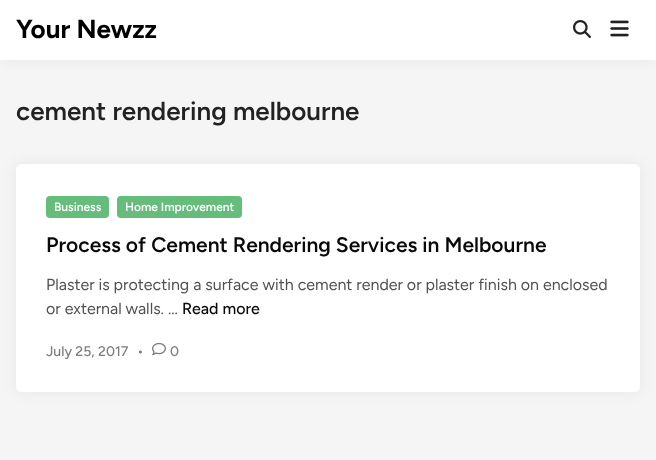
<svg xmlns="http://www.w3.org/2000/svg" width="656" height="460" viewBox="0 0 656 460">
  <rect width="100%" height="100%" fill="rgb(245,245,245)"/>
  <rect x="0" y="0" width="656" height="60" fill="rgba(0,0,0,0.06)" filter="blur(7.5px)"/>
  <rect x="0" y="0" width="656" height="60" fill="rgb(255,255,255)"/>
  <text x="16" y="38" font-family="Figtree" font-size="26" font-weight="bold" fill="rgb(0,0,0)">Your Newzz</text>
  <image x="573" y="20" width="18" height="18" href="pic1.png"/>
  <image x="610" y="20" width="19" height="17" href="pic2.png"/>
  <text x="16" y="120" font-family="Figtree" font-size="26" font-weight="600" fill="rgb(34,34,34)">cement rendering melbourne</text>
  <rect x="16" y="164" width="624" height="228" rx="6" fill="rgba(0,0,0,0.06)" filter="blur(7.5px)"/>
  <rect x="16" y="164" width="624" height="228" rx="6" fill="rgb(255,255,255)"/>
  <rect x="46" y="196" width="63" height="22" rx="4" fill="rgb(101,188,123)"/>
  <text x="54" y="211" font-family="Figtree" font-size="12" font-weight="600" fill="rgb(255,255,255)">Business</text>
  <rect x="117" y="196" width="125" height="22" rx="4" fill="rgb(101,188,123)"/>
  <text x="125" y="211" font-family="Figtree" font-size="12" font-weight="600" fill="rgb(255,255,255)">Home Improvement</text>
  <text x="46" y="252" font-family="Figtree" font-size="21" font-weight="600" fill="rgb(10,8,8)">Process of Cement Rendering Services in Melbourne</text>
  <g font-family="Figtree" font-size="16" fill="rgb(80,80,80)">
    <text>
      <tspan x="46" y="290">Plaster is protecting a surface with cement render or plaster finish on enclosed</tspan>
      <tspan x="46" y="314">or external walls. …</tspan>
    </text>
  </g>
  <text x="182" y="314" font-family="Figtree" font-size="16" font-weight="500" fill="rgb(10,8,8)">Read more</text>
  <g font-family="Figtree" font-size="14" font-weight="500" fill="rgb(125,125,125)">
    <text x="46" y="356">July 25, 2017</text>
    <text x="137" y="356">•</text>
  </g>
  <image x="152" y="342" width="14" height="14" href="pic3.png"/>
  <text x="170" y="356" font-family="Figtree" font-size="14" font-weight="500" fill="rgb(125,125,125)">0</text>
</svg>
